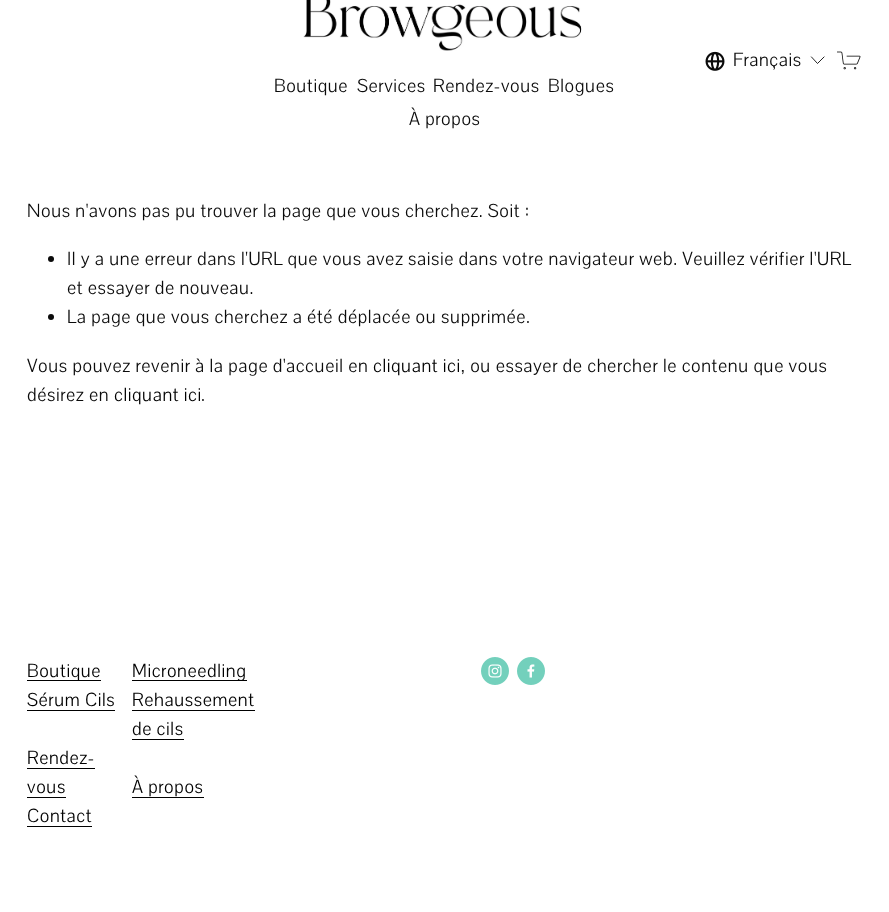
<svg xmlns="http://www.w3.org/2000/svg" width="889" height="912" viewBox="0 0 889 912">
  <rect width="100%" height="100%" fill="rgb(255,255,255)"/>
  <image x="705" y="51" width="20" height="20" href="pic1.png"/>
  <text x="733" y="66" font-family="Pavanam" font-size="19.4" letter-spacing="0.58" fill="rgb(11,11,11)">Français</text>
  <path d="M824 57L817.5 63.5L811.5 57" fill="none" stroke="rgb(11,11,11)" stroke-width="0.9" stroke-linecap="square"/>
  <image x="837" y="51" width="24" height="19" href="pic2.png"/>
  <image x="303" y="0" width="279" height="51" href="pic3.png"/>
  <g font-family="Pavanam" font-size="19.4" letter-spacing="0.58" fill="rgb(11,11,11)">
    <text x="274" y="92">Boutique</text>
    <text x="357" y="92">Services</text>
    <text x="433" y="92">Rendez-vous</text>
    <text x="548" y="92">Blogues</text>
    <text x="409" y="125">À propos</text>
    <text x="27" y="217">Nous n'avons pas pu trouver la page que vous cherchez. Soit :</text>
  </g>
  <circle cx="51" cy="259" r="3" fill="rgb(11,11,11)"/>
  <g font-family="Pavanam" font-size="19.4" letter-spacing="0.58" fill="rgb(11,11,11)">
    <text>
      <tspan x="67" y="265">Il y a une erreur dans l'URL que vous avez saisie dans votre navigateur web. Veuillez vérifier l'URL</tspan>
      <tspan x="67" y="294">et essayer de nouveau.</tspan>
    </text>
  </g>
  <circle cx="51" cy="317" r="3" fill="rgb(11,11,11)"/>
  <g font-family="Pavanam" font-size="19.4" letter-spacing="0.58" fill="rgb(11,11,11)">
    <text x="67" y="323">La page que vous cherchez a été déplacée ou supprimée.</text>
    <text x="27" y="372">Vous pouvez revenir à la page d'accueil en</text>
  </g>
  <text x="373" y="372" font-family="Pavanam" font-size="19.4" letter-spacing="0.58" fill="rgb(0,0,0)">cliquant ici</text>
  <g font-family="Pavanam" font-size="19.4" letter-spacing="0.58" fill="rgb(11,11,11)">
    <text x="461" y="372">, ou essayer de chercher le contenu que vous</text>
    <text x="27" y="401">désirez en</text>
  </g>
  <text x="114" y="401" font-family="Pavanam" font-size="19.4" letter-spacing="0.58" fill="rgb(0,0,0)">cliquant ici</text>
  <text x="201" y="401" font-family="Pavanam" font-size="19.4" letter-spacing="0.58" fill="rgb(11,11,11)">.</text>
  <rect x="27" y="680" width="74" height="1" fill="rgb(0,0,0)"/>
  <g font-family="Pavanam" font-size="19.4" letter-spacing="0.58" fill="rgb(0,0,0)">
    <text>
      <tspan x="27" y="677">Boutique</tspan>
      <tspan x="27" y="706">Sérum Cils</tspan>
    </text>
  </g>
  <rect x="27" y="710" width="88" height="1" fill="rgb(0,0,0)"/>
  <text x="27" y="764" font-family="Pavanam" font-size="19.4" letter-spacing="0.58" fill="rgb(0,0,0)">Rendez-</text>
  <rect x="27" y="768" width="68" height="1" fill="rgb(0,0,0)"/>
  <text x="27" y="793" font-family="Pavanam" font-size="19.4" letter-spacing="0.58" fill="rgb(0,0,0)">vous</text>
  <rect x="27" y="797" width="39" height="1" fill="rgb(0,0,0)"/>
  <text x="27" y="822" font-family="Pavanam" font-size="19.4" letter-spacing="0.58" fill="rgb(0,0,0)">Contact</text>
  <rect x="27" y="826" width="65" height="1" fill="rgb(0,0,0)"/>
  <rect x="132" y="680" width="115" height="1" fill="rgb(0,0,0)"/>
  <g font-family="Pavanam" font-size="19.4" letter-spacing="0.58" fill="rgb(0,0,0)">
    <text>
      <tspan x="132" y="677">Microneedling</tspan>
      <tspan x="132" y="706">Rehaussement</tspan>
    </text>
  </g>
  <rect x="132" y="710" width="123" height="1" fill="rgb(0,0,0)"/>
  <text x="132" y="735" font-family="Pavanam" font-size="19.4" letter-spacing="0.58" fill="rgb(0,0,0)">de cils</text>
  <rect x="132" y="739" width="52" height="1" fill="rgb(0,0,0)"/>
  <text x="132" y="793" font-family="Pavanam" font-size="19.4" letter-spacing="0.58" fill="rgb(0,0,0)">À propos</text>
  <rect x="132" y="797" width="72" height="1" fill="rgb(0,0,0)"/>
  <image x="481" y="657" width="28" height="28" href="pic4.png"/>
  <image x="517" y="657" width="28" height="28" href="pic5.png"/>
</svg>
